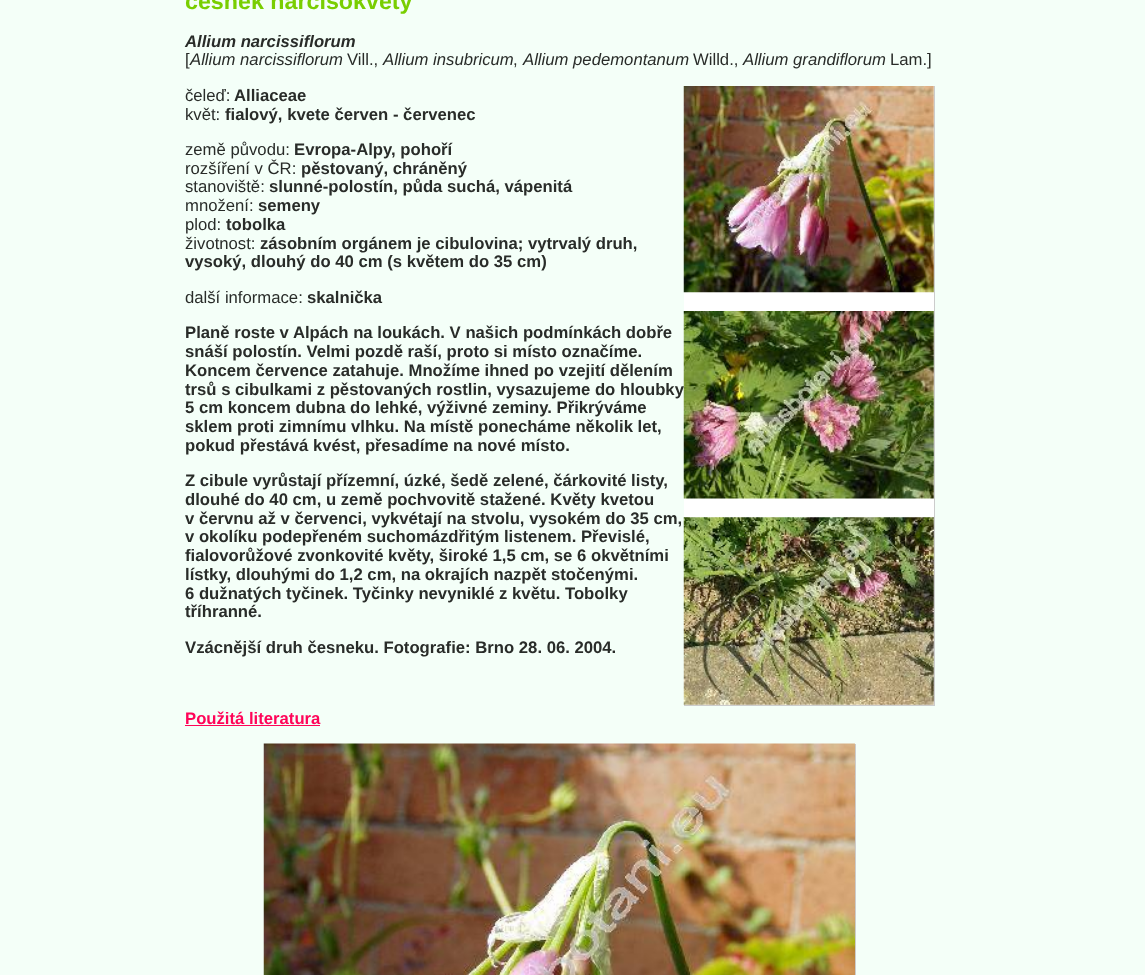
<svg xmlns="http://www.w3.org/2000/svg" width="1145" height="975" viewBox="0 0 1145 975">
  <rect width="100%" height="100%" fill="rgb(244,255,248)"/>
  <text x="185" y="9" font-family="Liberation Sans" font-size="23.25" font-weight="bold" fill="rgb(121,206,1)">česnek narcisokvětý</text>
  <text x="185" y="47" font-family="Liberation Sans" font-size="16.7" font-weight="bold" font-style="italic" fill="rgb(41,44,41)">Allium narcissiflorum</text>
  <text x="185" y="65" font-family="Liberation Sans" font-size="16.7" fill="rgb(41,44,41)">[</text>
  <text x="190" y="65" font-family="Liberation Sans" font-size="16.7" font-style="italic" fill="rgb(41,44,41)">Allium narcissiflorum</text>
  <text x="347" y="65" font-family="Liberation Sans" font-size="16.7" fill="rgb(41,44,41)">Vill.,</text>
  <text x="383" y="65" font-family="Liberation Sans" font-size="16.7" font-style="italic" fill="rgb(41,44,41)">Allium insubricum</text>
  <text x="513" y="65" font-family="Liberation Sans" font-size="16.7" fill="rgb(41,44,41)">,</text>
  <text x="523" y="65" font-family="Liberation Sans" font-size="16.7" font-style="italic" fill="rgb(41,44,41)">Allium pedemontanum</text>
  <text x="693" y="65" font-family="Liberation Sans" font-size="16.7" fill="rgb(41,44,41)">Willd.,</text>
  <text x="743" y="65" font-family="Liberation Sans" font-size="16.7" font-style="italic" fill="rgb(41,44,41)">Allium grandiflorum</text>
  <g font-family="Liberation Sans" font-size="16.7" fill="rgb(41,44,41)">
    <text x="890" y="65">Lam.]</text>
    <text x="185" y="101">čeleď:</text>
  </g>
  <text x="234" y="101" font-family="Liberation Sans" font-size="16.7" font-weight="bold" fill="rgb(41,44,41)">Alliaceae</text>
  <rect x="684" y="86" width="250" height="619" fill="rgb(255,255,255)"/>
  <rect x="934" y="86" width="1" height="620" fill="rgb(204,204,204)"/>
  <rect x="684" y="705" width="251" height="1" fill="rgb(204,204,204)"/>
  <image x="683" y="86" width="251" height="207" href="pic1.png"/>
  <image x="683" y="311" width="251" height="188" href="pic2.png"/>
  <image x="683" y="517" width="251" height="188" href="pic3.png"/>
  <text x="185" y="120" font-family="Liberation Sans" font-size="16.7" fill="rgb(41,44,41)">květ:</text>
  <text x="225" y="120" font-family="Liberation Sans" font-size="16.7" font-weight="bold" fill="rgb(41,44,41)">fialový, kvete červen - červenec</text>
  <text x="185" y="155" font-family="Liberation Sans" font-size="16.7" fill="rgb(41,44,41)">země původu:</text>
  <text x="294" y="155" font-family="Liberation Sans" font-size="16.7" font-weight="bold" fill="rgb(41,44,41)">Evropa-Alpy, pohoří</text>
  <text x="185" y="174" font-family="Liberation Sans" font-size="16.7" fill="rgb(41,44,41)">rozšíření v ČR:</text>
  <text x="301" y="174" font-family="Liberation Sans" font-size="16.7" font-weight="bold" fill="rgb(41,44,41)">pěstovaný, chráněný</text>
  <text x="185" y="192" font-family="Liberation Sans" font-size="16.7" fill="rgb(41,44,41)">stanoviště:</text>
  <text x="269" y="192" font-family="Liberation Sans" font-size="16.7" font-weight="bold" fill="rgb(41,44,41)">slunné-polostín, půda suchá, vápenitá</text>
  <text x="185" y="211" font-family="Liberation Sans" font-size="16.7" fill="rgb(41,44,41)">množení:</text>
  <text x="258" y="211" font-family="Liberation Sans" font-size="16.7" font-weight="bold" fill="rgb(41,44,41)">semeny</text>
  <text x="185" y="230" font-family="Liberation Sans" font-size="16.7" fill="rgb(41,44,41)">plod:</text>
  <text x="226" y="230" font-family="Liberation Sans" font-size="16.7" font-weight="bold" fill="rgb(41,44,41)">tobolka</text>
  <text x="185" y="249" font-family="Liberation Sans" font-size="16.7" fill="rgb(41,44,41)">životnost:</text>
  <g font-family="Liberation Sans" font-size="16.7" font-weight="bold" fill="rgb(41,44,41)">
    <text x="260" y="249">zásobním orgánem je cibulovina; vytrvalý druh,</text>
    <text x="185" y="267">vysoký, dlouhý do 40 cm (s květem do 35 cm)</text>
  </g>
  <text x="185" y="303" font-family="Liberation Sans" font-size="16.7" fill="rgb(41,44,41)">další informace:</text>
  <g font-family="Liberation Sans" font-size="16.7" font-weight="bold" fill="rgb(41,44,41)">
    <text x="307" y="303">skalnička</text>
    <text>
      <tspan x="185" y="338">Planě roste v Alpách na loukách. V našich podmínkách dobře</tspan>
      <tspan x="185" y="357">snáší polostín. Velmi pozdě raší, proto si místo označíme.</tspan>
      <tspan x="185" y="376">Koncem července zatahuje. Množíme ihned po vzejití dělením</tspan>
      <tspan x="185" y="395">trsů s cibulkami z pěstovaných rostlin, vysazujeme do hloubky</tspan>
      <tspan x="185" y="413">5 cm koncem dubna do lehké, výživné zeminy. Přikrýváme</tspan>
      <tspan x="185" y="432">sklem proti zimnímu vlhku. Na místě ponecháme několik let,</tspan>
      <tspan x="185" y="451">pokud přestává kvést, přesadíme na nové místo.</tspan>
    </text>
    <text>
      <tspan x="185" y="486">Z cibule vyrůstají přízemní, úzké, šedě zelené, čárkovité listy,</tspan>
      <tspan x="185" y="505">dlouhé do 40 cm, u země pochvovitě stažené. Květy kvetou</tspan>
      <tspan x="185" y="524">v červnu až v červenci, vykvétají na stvolu, vysokém do 35 cm,</tspan>
      <tspan x="185" y="542">v okolíku podepřeném suchomázdřitým listenem. Převislé,</tspan>
      <tspan x="185" y="561">fialovorůžové zvonkovité květy, široké 1,5 cm, se 6 okvětními</tspan>
      <tspan x="185" y="580">lístky, dlouhými do 1,2 cm, na okrajích nazpět stočenými.</tspan>
      <tspan x="185" y="599">6 dužnatých tyčinek. Tyčinky nevyniklé z květu. Tobolky</tspan>
      <tspan x="185" y="617">tříhranné.</tspan>
    </text>
    <text x="185" y="653">Vzácnější druh česneku. Fotografie: Brno 28. 06. 2004.</text>
  </g>
  <text x="185" y="724" font-family="Liberation Sans" font-size="16.7" font-weight="bold" fill="rgb(255,4,88)">Použitá literatura</text>
  <rect x="185" y="725" width="135" height="1" fill="rgb(255,4,88)"/>
  <rect x="855" y="744" width="1" height="231" fill="rgb(204,204,204)"/>
  <image x="263" y="743" width="592" height="232" href="pic4.png"/>
</svg>
